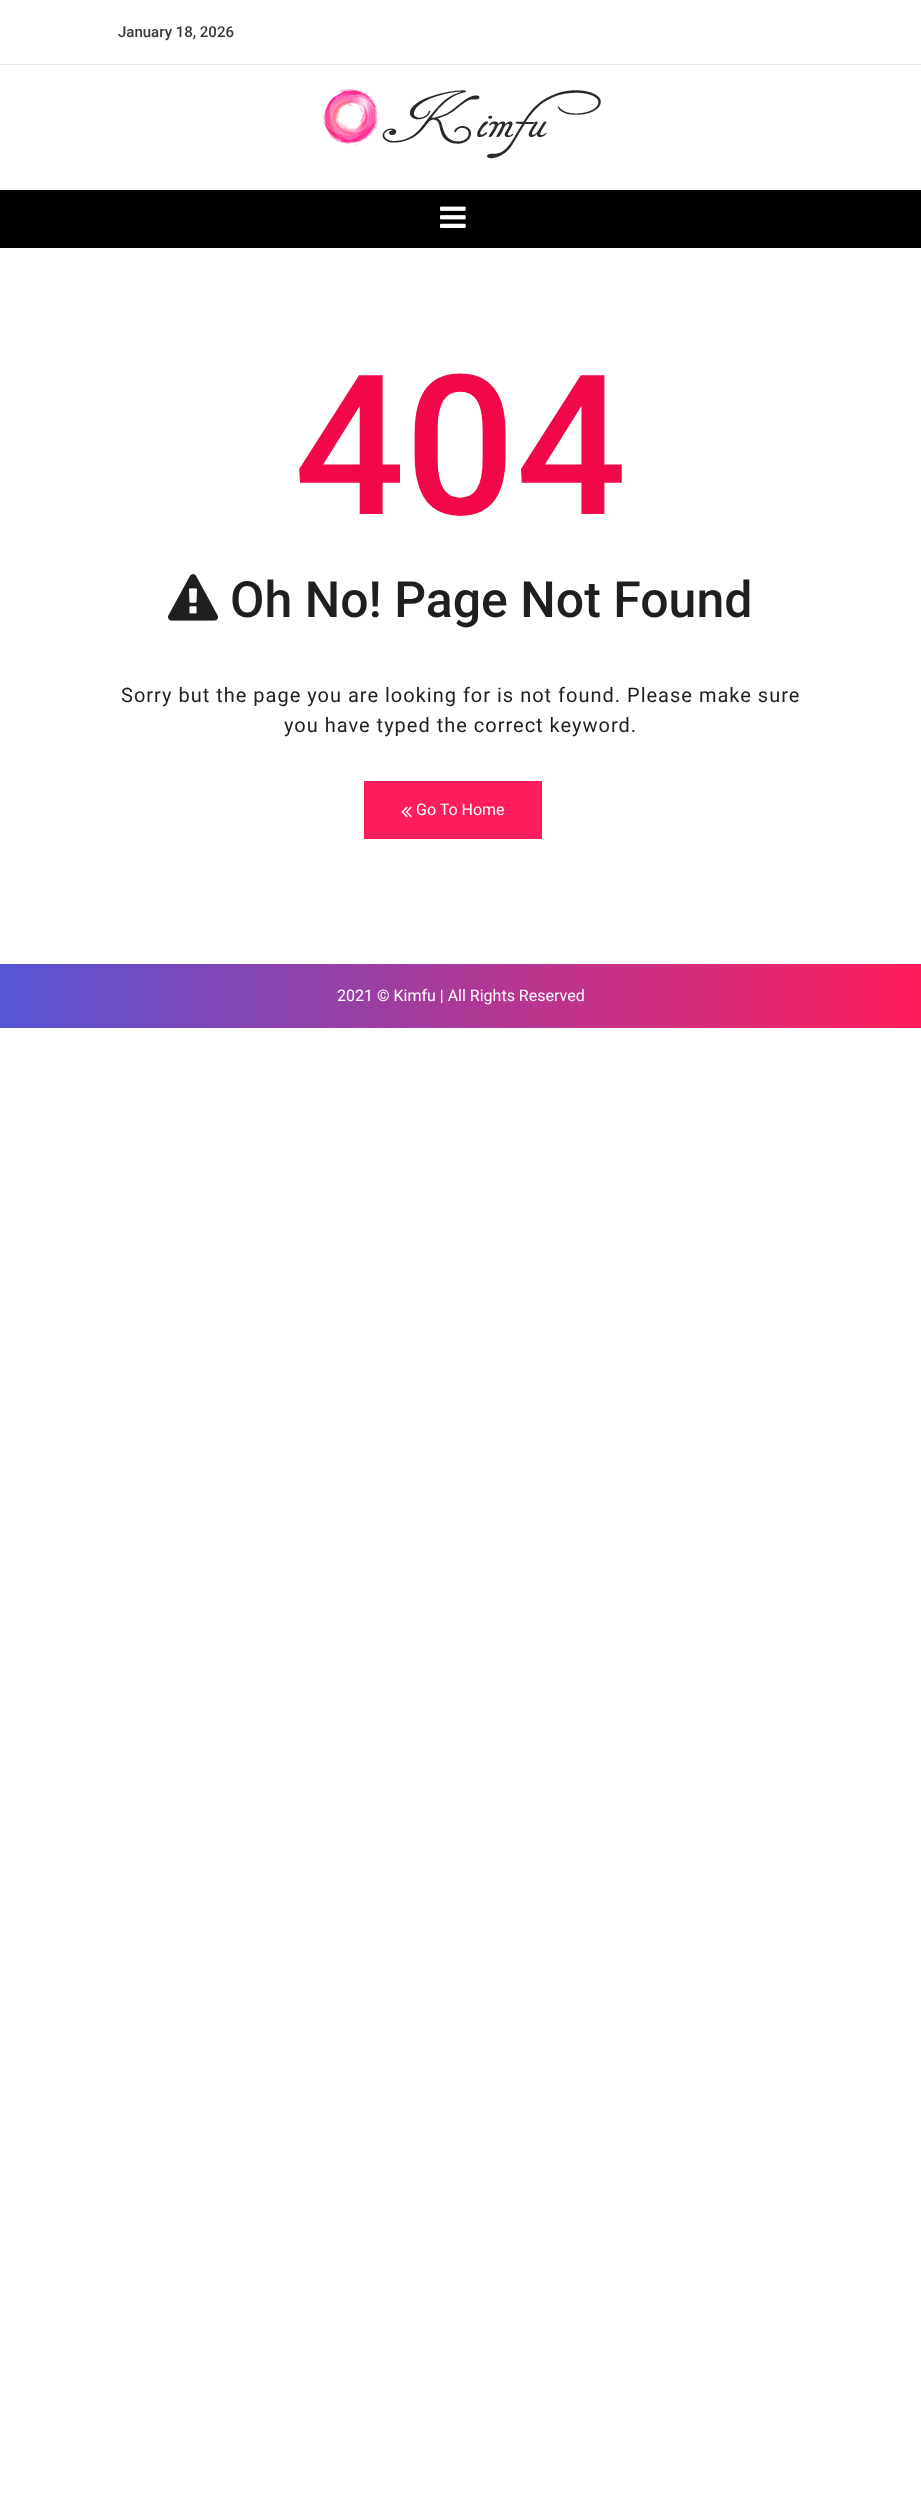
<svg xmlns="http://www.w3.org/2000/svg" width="921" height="2504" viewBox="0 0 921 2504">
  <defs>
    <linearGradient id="g1" gradientUnits="userSpaceOnUse" x1="0" y1="996" x2="921" y2="996"><stop offset="0" stop-color="rgb(88,86,213)"/><stop offset="1" stop-color="rgb(255,29,91)"/></linearGradient>
  </defs>
  <rect width="100%" height="100%" fill="rgb(255,255,255)"/>
  <rect x="0" y="64" width="921" height="1" fill="rgb(235,232,232)"/>
  <text x="118" y="37" font-family="Roboto" font-size="15" font-weight="500" fill="rgb(56,56,56)">January 18, 2026</text>
  <image x="322" y="89" width="279" height="70" href="pic1.png"/>
  <rect x="0" y="190" width="921" height="58" fill="rgb(0,0,0)"/>
  <image x="440" y="206" width="26" height="22" href="pic2.png"/>
  <text x="294" y="514" font-family="Roboto" font-size="195" font-weight="500" fill="rgb(241,8,73)">404</text>
  <image x="168" y="574" width="50" height="47" href="pic3.png"/>
  <text x="230" y="617" font-family="Roboto" font-size="50" font-weight="500" fill="rgb(31,31,31)">Oh No! Page Not Found</text>
  <g font-family="Roboto" font-size="20" letter-spacing="1" fill="rgb(31,31,31)">
    <text x="121" y="702">Sorry but the page you are looking for is not found. Please make sure</text>
    <text x="284" y="732">you have typed the correct keyword.</text>
  </g>
  <rect x="364" y="781" width="178" height="58" fill="rgb(255,29,91)"/>
  <image x="401" y="806" width="11" height="12" href="pic4.png"/>
  <text x="416" y="815" font-family="Roboto" font-size="16" fill="rgb(255,255,255)">Go To Home</text>
  <rect x="0" y="964" width="921" height="64" fill="url(#g1)"/>
  <text x="337" y="1001" font-family="Roboto" font-size="16" fill="rgb(255,255,255)">2021 © Kimfu | All Rights Reserved</text>
</svg>
